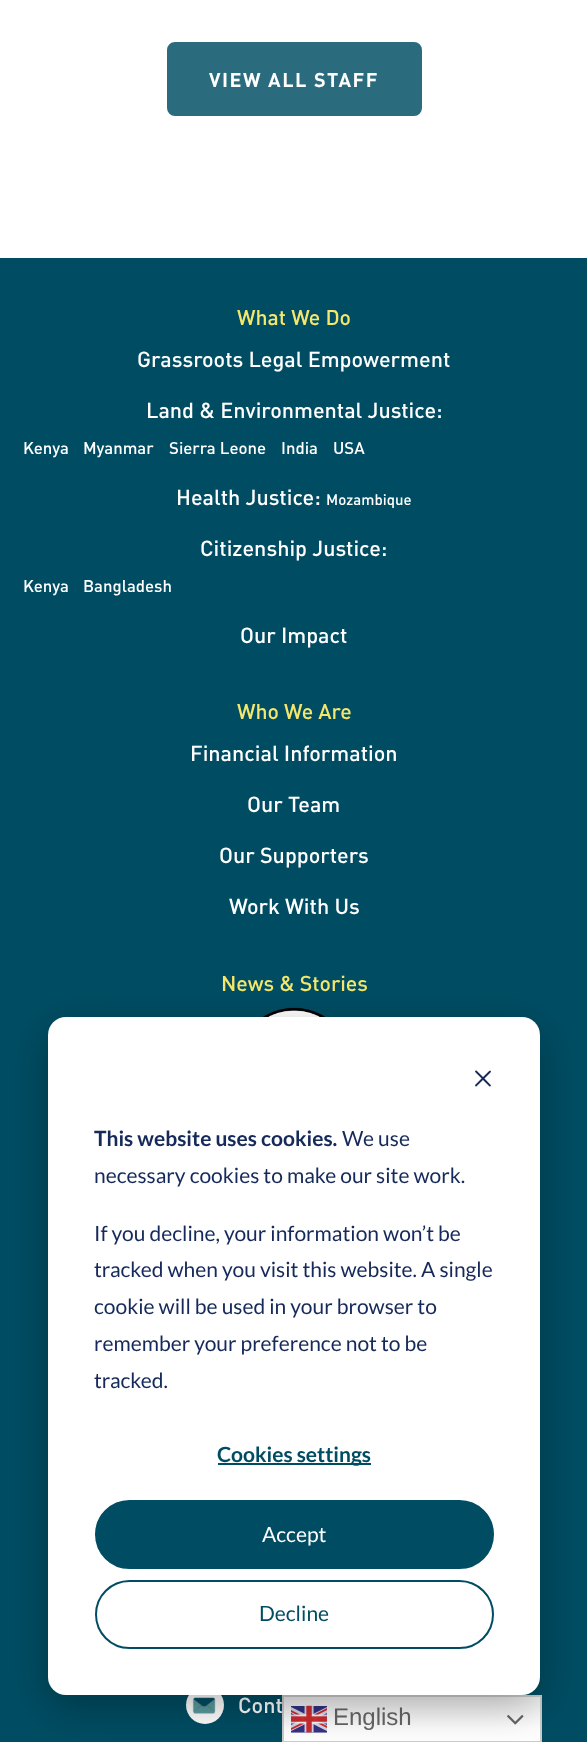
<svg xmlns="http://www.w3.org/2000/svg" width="587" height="1742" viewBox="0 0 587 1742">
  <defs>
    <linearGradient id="g1" gradientUnits="userSpaceOnUse" x1="412" y1="1695" x2="412" y2="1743"><stop offset="0" stop-color="rgb(239,239,239)"/><stop offset="0.7" stop-color="rgb(255,255,255)"/></linearGradient>
  </defs>
  <rect width="100%" height="100%" fill="rgb(255,255,255)"/>
  <rect x="168" y="43" width="253" height="72" rx="7" fill="rgb(43,107,126)" stroke="rgb(43,107,126)" stroke-width="2"/>
  <text x="209" y="87" font-family="DIN" font-size="19.75" font-weight="bold" letter-spacing="1.5" fill="rgb(255,255,255)">VIEW ALL STAFF</text>
  <rect x="0" y="258" width="587" height="1484" fill="rgb(0,77,99)"/>
  <text x="237" y="325" font-family="DIN" font-size="21.25" font-weight="500" fill="rgb(245,231,107)">What We Do</text>
  <g font-family="DIN" font-size="21.6" font-weight="500" fill="rgb(255,255,255)">
    <text x="137" y="367">Grassroots Legal Empowerment</text>
    <text x="146" y="418">Land &amp; Environmental Justice:</text>
  </g>
  <g font-family="DIN" font-size="16.75" font-weight="500" fill="rgb(255,255,255)">
    <text x="23" y="454">Kenya</text>
    <text x="83" y="454">Myanmar</text>
    <text x="169" y="454">Sierra Leone</text>
    <text x="281" y="454">India</text>
    <text x="333" y="454">USA</text>
  </g>
  <text x="176" y="505" font-family="DIN" font-size="21.6" font-weight="500" fill="rgb(255,255,255)">Health Justice:</text>
  <text x="326" y="505" font-family="DIN" font-size="15" font-weight="500" fill="rgb(255,255,255)">Mozambique</text>
  <text x="200" y="556" font-family="DIN" font-size="21.6" font-weight="500" fill="rgb(255,255,255)">Citizenship Justice:</text>
  <g font-family="DIN" font-size="16.75" font-weight="500" fill="rgb(255,255,255)">
    <text x="23" y="592">Kenya</text>
    <text x="83" y="592">Bangladesh</text>
  </g>
  <text x="240" y="643" font-family="DIN" font-size="21.6" font-weight="500" fill="rgb(255,255,255)">Our Impact</text>
  <text x="237" y="719" font-family="DIN" font-size="21.25" font-weight="500" fill="rgb(245,231,107)">Who We Are</text>
  <g font-family="DIN" font-size="21.6" font-weight="500" fill="rgb(255,255,255)">
    <text x="190" y="761">Financial Information</text>
    <text x="247" y="812">Our Team</text>
    <text x="219" y="863">Our Supporters</text>
    <text x="229" y="914">Work With Us</text>
  </g>
  <text x="221" y="991" font-family="DIN" font-size="21.25" font-weight="500" fill="rgb(245,231,107)">News &amp; Stories</text>
  <image x="262" y="1007" width="64" height="10" href="pic1.png"/>
  <circle cx="205" cy="1705" r="19" fill="rgb(255,255,255)"/>
  <image x="192" y="1697" width="24" height="17" href="pic2.png"/>
  <text x="238" y="1713" font-family="DIN" font-size="21.6" font-weight="500" fill="rgb(255,255,255)">Cont</text>
  <rect x="284" y="1697" width="256" height="44" fill="url(#g1)"/>
  <rect x="283" y="1696" width="258" height="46" fill="none" stroke="rgb(204,204,204)" stroke-width="2"/>
  <image x="291" y="1705" width="36" height="28" href="pic3.png"/>
  <text x="333" y="1725" font-family="Liberation Sans" font-size="24" fill="rgb(102,102,102)">English</text>
  <image x="507" y="1715" width="17" height="10" href="pic4.png"/>
  <rect x="48" y="1029" width="492" height="678" rx="18" fill="rgba(0,0,0,0.28)" filter="blur(21px)"/>
  <rect x="48" y="1017" width="492" height="678" rx="18" fill="rgb(255,255,255)"/>
  <image x="475" y="1070" width="16" height="17" href="pic5.png"/>
  <text x="94" y="1146" font-family="Lato" font-size="21" font-weight="bold" fill="rgb(21,41,90)">This website uses cookies.</text>
  <g font-family="Lato" font-size="21" fill="rgb(21,41,90)">
    <text x="342" y="1146">We use</text>
    <text x="94" y="1183">necessary cookies to make our site work.</text>
    <text>
      <tspan x="94" y="1241">If you decline, your information won’t be</tspan>
      <tspan x="94" y="1277">tracked when you visit this website. A single</tspan>
      <tspan x="94" y="1314">cookie will be used in your browser to</tspan>
      <tspan x="94" y="1351">remember your preference not to be</tspan>
      <tspan x="94" y="1388">tracked.</tspan>
    </text>
  </g>
  <rect x="218" y="1463" width="153" height="2" fill="rgb(0,77,99)"/>
  <text x="217" y="1462" font-family="Lato" font-size="21" font-weight="bold" fill="rgb(0,77,99)">Cookies settings</text>
  <rect x="96" y="1501" width="397" height="67" rx="33.5" fill="rgb(0,77,99)" stroke="rgb(0,77,99)" stroke-width="2"/>
  <text x="262" y="1542" font-family="Lato" font-size="21" fill="rgb(255,255,255)">Accept</text>
  <rect x="96" y="1581" width="397" height="67" rx="33.5" fill="none" stroke="rgb(0,77,99)" stroke-width="2"/>
  <text x="259" y="1621" font-family="Lato" font-size="21" fill="rgb(0,77,99)">Decline</text>
</svg>
